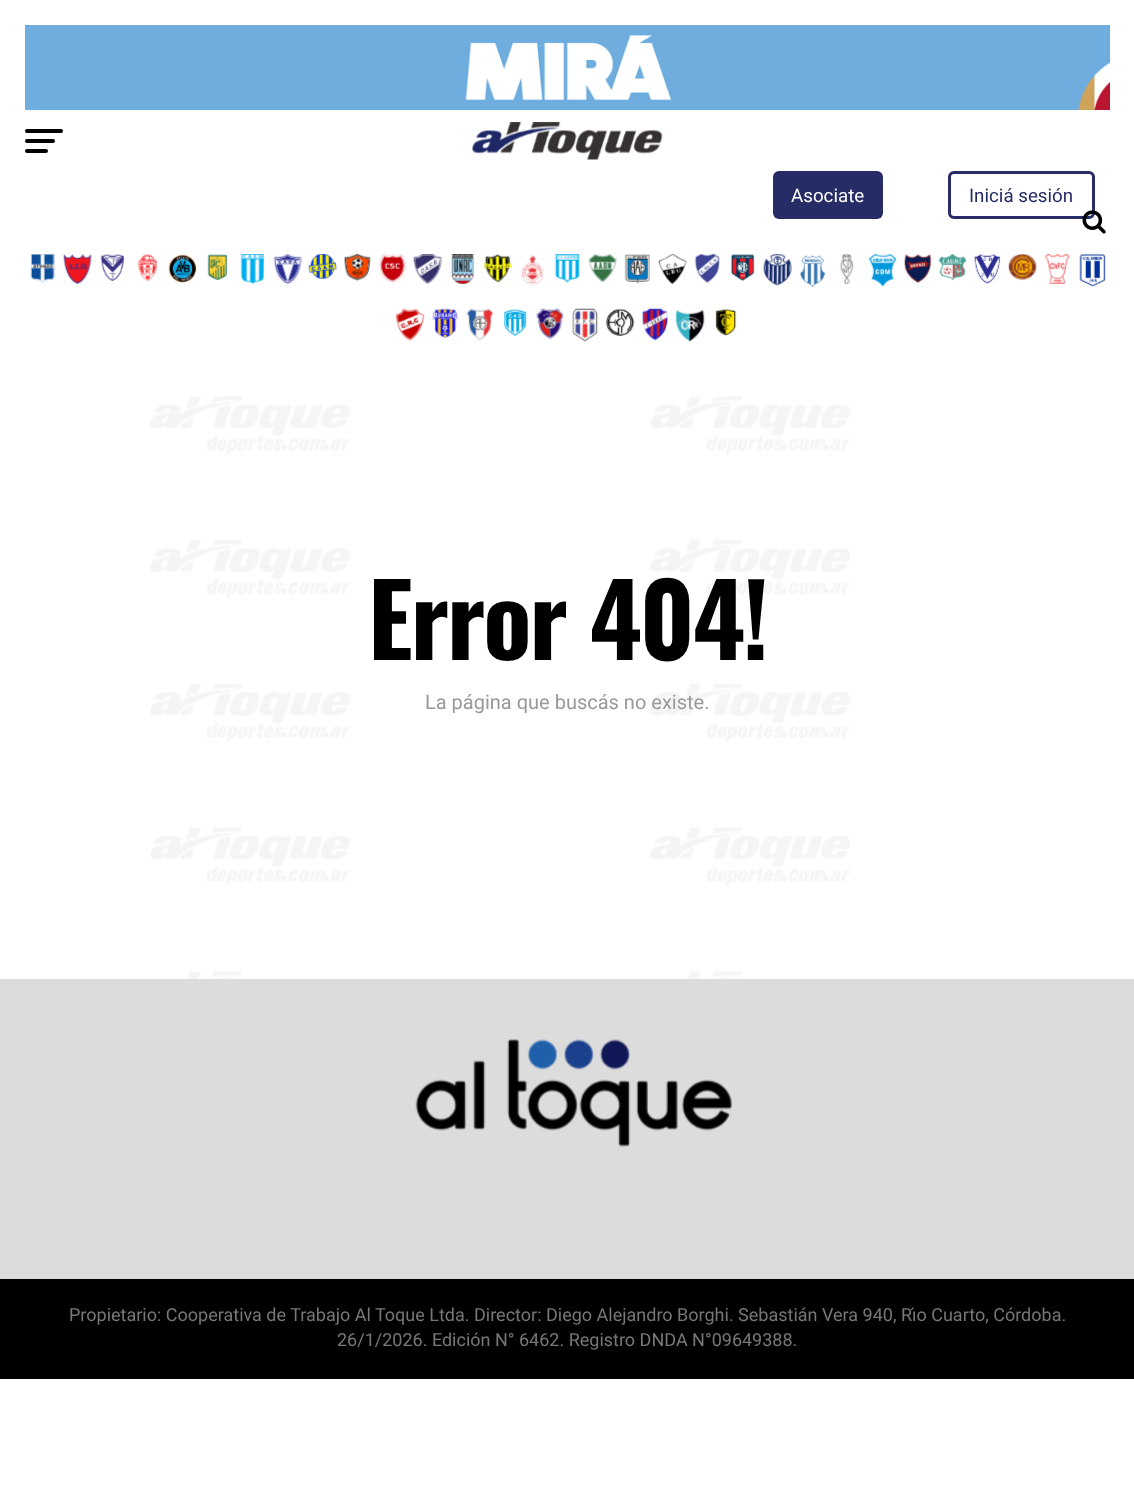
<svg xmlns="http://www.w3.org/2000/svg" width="1134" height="1503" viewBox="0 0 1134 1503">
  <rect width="100%" height="100%" fill="rgb(255,255,255)"/>
  <image x="25" y="25" width="1085" height="85" href="pic1.png"/>
  <rect x="25" y="129" width="38" height="4" rx="2" fill="rgb(0,0,0)"/>
  <rect x="25" y="139" width="30" height="4" rx="2" fill="rgb(0,0,0)"/>
  <rect x="25" y="149" width="23" height="4" rx="2" fill="rgb(0,0,0)"/>
  <image x="472" y="122" width="191" height="38" href="pic2.png"/>
  <rect x="773" y="171" width="110" height="48" rx="6" fill="rgb(38,44,101)"/>
  <text x="791" y="202" font-family="Roboto" font-size="18.75" fill="rgb(255,255,255)">Asociate</text>
  <rect x="949.5" y="172.5" width="144" height="45" rx="4.5" fill="none" stroke="rgb(38,44,101)" stroke-width="3"/>
  <text x="969" y="202" font-family="Roboto" font-size="18.75" fill="rgb(38,44,101)">Iniciá sesión</text>
  <image x="1082" y="210" width="24" height="24" href="pic3.png"/>
  <image x="30" y="254" width="25" height="29" href="pic4.png"/>
  <image x="63" y="254" width="29" height="30" href="pic5.png"/>
  <image x="100" y="254" width="25" height="27" href="pic6.png"/>
  <image x="137" y="254" width="21" height="27" href="pic7.png"/>
  <image x="168" y="254" width="29" height="29" href="pic8.png"/>
  <image x="207" y="254" width="21" height="26" href="pic9.png"/>
  <image x="240" y="254" width="25" height="30" href="pic10.png"/>
  <image x="273" y="254" width="29" height="30" href="pic11.png"/>
  <image x="308" y="254" width="29" height="25" href="pic12.png"/>
  <image x="343" y="254" width="28" height="27" href="pic13.png"/>
  <image x="378" y="254" width="28" height="29" href="pic14.png"/>
  <image x="413" y="254" width="29" height="30" href="pic15.png"/>
  <image x="451" y="254" width="23" height="30" href="pic16.png"/>
  <image x="483" y="254" width="29" height="28" href="pic17.png"/>
  <image x="521" y="254" width="23" height="31" href="pic18.png"/>
  <image x="554" y="254" width="26" height="29" href="pic19.png"/>
  <image x="588" y="254" width="29" height="29" href="pic20.png"/>
  <image x="624" y="254" width="26" height="30" href="pic21.png"/>
  <image x="658" y="254" width="29" height="30" href="pic22.png"/>
  <image x="694" y="254" width="26" height="29" href="pic23.png"/>
  <image x="730" y="254" width="25" height="27" href="pic24.png"/>
  <image x="763" y="254" width="29" height="32" href="pic25.png"/>
  <image x="799" y="255" width="27" height="33" href="pic26.png"/>
  <image x="839" y="254" width="15" height="30" href="pic27.png"/>
  <image x="868" y="254" width="29" height="33" href="pic28.png"/>
  <image x="904" y="254" width="28" height="29" href="pic29.png"/>
  <image x="938" y="254" width="29" height="27" href="pic30.png"/>
  <image x="974" y="254" width="27" height="30" href="pic31.png"/>
  <image x="1008" y="254" width="29" height="27" href="pic32.png"/>
  <image x="1044" y="254" width="26" height="30" href="pic33.png"/>
  <image x="1079" y="254" width="27" height="33" href="pic34.png"/>
  <image x="396" y="308" width="29" height="33" href="pic35.png"/>
  <image x="432" y="308" width="27" height="30" href="pic36.png"/>
  <image x="466" y="308" width="29" height="33" href="pic37.png"/>
  <image x="504" y="308" width="23" height="28" href="pic38.png"/>
  <image x="536" y="308" width="28" height="31" href="pic39.png"/>
  <image x="572" y="308" width="26" height="34" href="pic40.png"/>
  <image x="606" y="308" width="29" height="28" href="pic41.png"/>
  <image x="642" y="308" width="27" height="33" href="pic42.png"/>
  <image x="676" y="309" width="29" height="33" href="pic43.png"/>
  <image x="715" y="308" width="22" height="28" href="pic44.png"/>
  <image x="150" y="396" width="700" height="583" href="pic45.png"/>
  <text x="368" y="660" font-family="Oswald" font-size="100" font-weight="bold" letter-spacing="-2" fill="rgb(0,0,0)">Error 404!</text>
  <text x="425" y="709" font-family="Roboto" font-size="20" fill="rgb(153,153,153)">La página que buscás no existe.</text>
  <rect x="0" y="979" width="1134" height="300" fill="rgb(220,220,220)"/>
  <image x="415" y="1039" width="317" height="108" href="pic46.png"/>
  <rect x="0" y="1279" width="1134" height="100" fill="rgb(0,0,0)"/>
  <g font-family="Roboto" font-size="18" fill="rgb(119,119,119)">
    <text x="69" y="1321">Propietario: Cooperativa de Trabajo Al Toque Ltda. Director: Diego Alejandro Borghi. Sebastián Vera 940, Río Cuarto, Córdoba.</text>
    <text x="337" y="1346">26/1/2026. Edición N° 6462. Registro DNDA N°09649388.</text>
  </g>
</svg>
